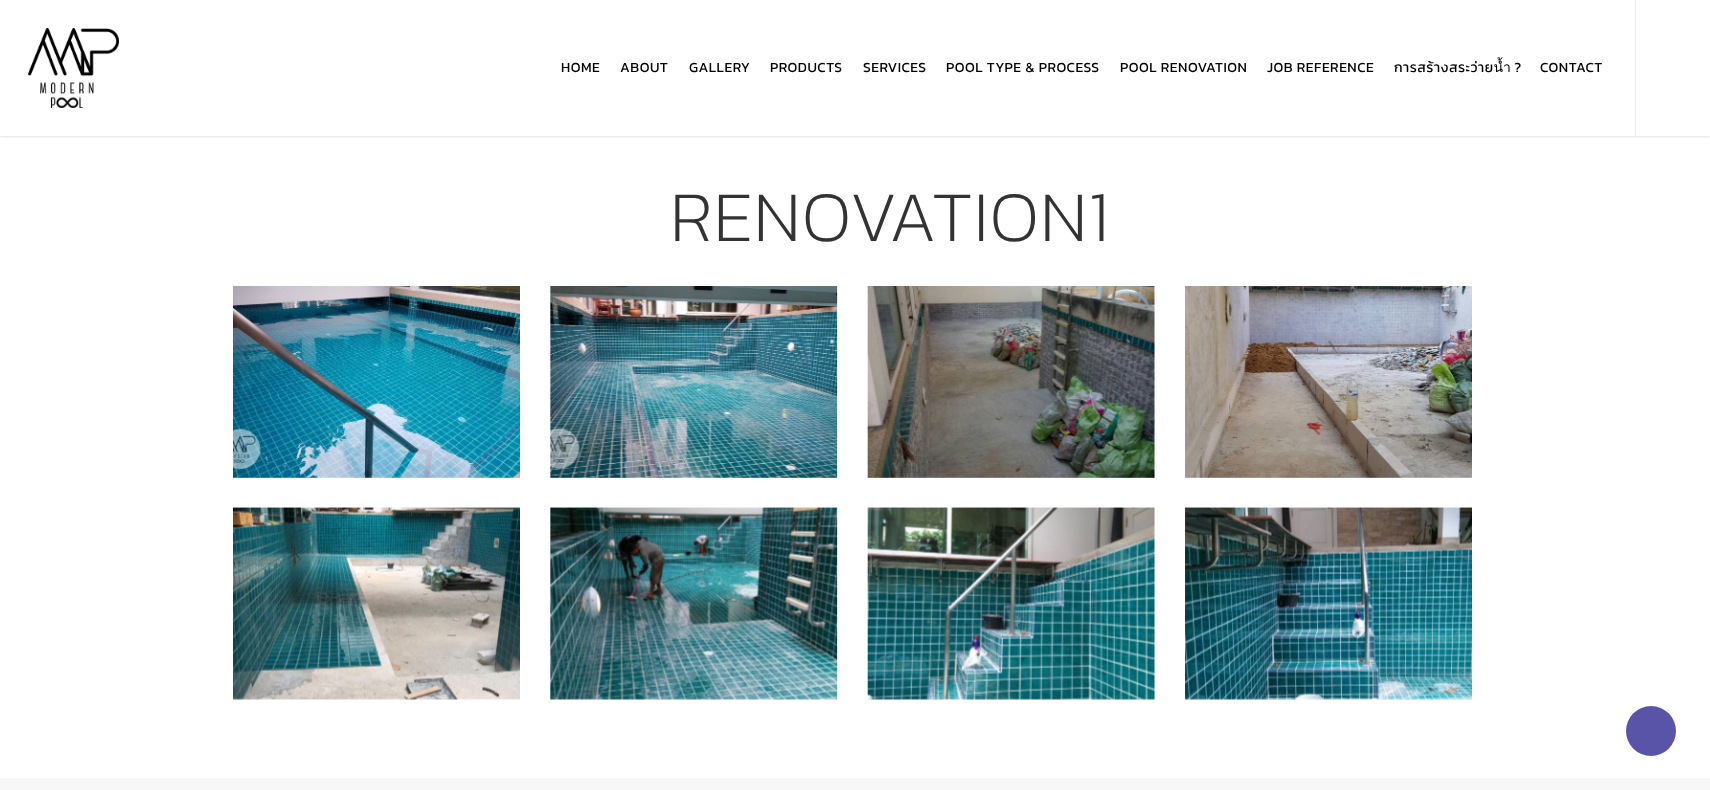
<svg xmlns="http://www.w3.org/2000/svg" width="1710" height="790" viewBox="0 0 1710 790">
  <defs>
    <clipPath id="clip1"><rect x="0" y="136" width="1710" height="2"/></clipPath>
  </defs>
  <rect width="100%" height="100%" fill="rgb(255,255,255)"/>
  <g clip-path="url(#clip1)">
    <rect x="0" y="0" width="1710" height="136" fill="rgba(0,0,0,0.22)" filter="blur(1.5px)"/>
  </g>
  <image x="28" y="28" width="91" height="80" href="pic1.png"/>
  <g font-family="Kanit" font-size="14" letter-spacing="0.5" fill="rgb(0,0,0)">
    <text x="561" y="72">HOME</text>
    <text x="620" y="72">ABOUT</text>
    <text x="689" y="72">GALLERY</text>
    <text x="770" y="72">PRODUCTS</text>
    <text x="863" y="72">SERVICES</text>
    <text x="946" y="72">POOL TYPE &amp; PROCESS</text>
    <text x="1120" y="72">POOL RENOVATION</text>
    <text x="1267" y="72">JOB REFERENCE</text>
    <text x="1394" y="72" word-spacing="-1">การสร้างสระว่ายน้ำ ?</text>
    <text x="1540" y="72">CONTACT</text>
  </g>
  <rect x="1635" y="0" width="1" height="136" fill="rgb(237,237,237)"/>
  <text x="670" y="241" font-family="Kanit" font-size="72" font-weight="200" letter-spacing="1" fill="rgb(51,51,51)">RENOVATION1</text>
  <image x="233" y="286" width="287" height="192" href="pic2.png"/>
  <image x="550" y="286" width="288" height="192" href="pic3.png"/>
  <image x="867" y="286" width="288" height="192" href="pic4.png"/>
  <image x="1185" y="286" width="287" height="192" href="pic5.png"/>
  <image x="233" y="507" width="287" height="193" href="pic6.png"/>
  <image x="550" y="507" width="288" height="193" href="pic7.png"/>
  <image x="867" y="507" width="288" height="193" href="pic8.png"/>
  <image x="1185" y="507" width="287" height="193" href="pic9.png"/>
  <rect x="0" y="778" width="1710" height="12" fill="rgb(247,247,247)"/>
  <circle cx="1651" cy="731" r="25" fill="rgb(89,84,167)"/>
</svg>
